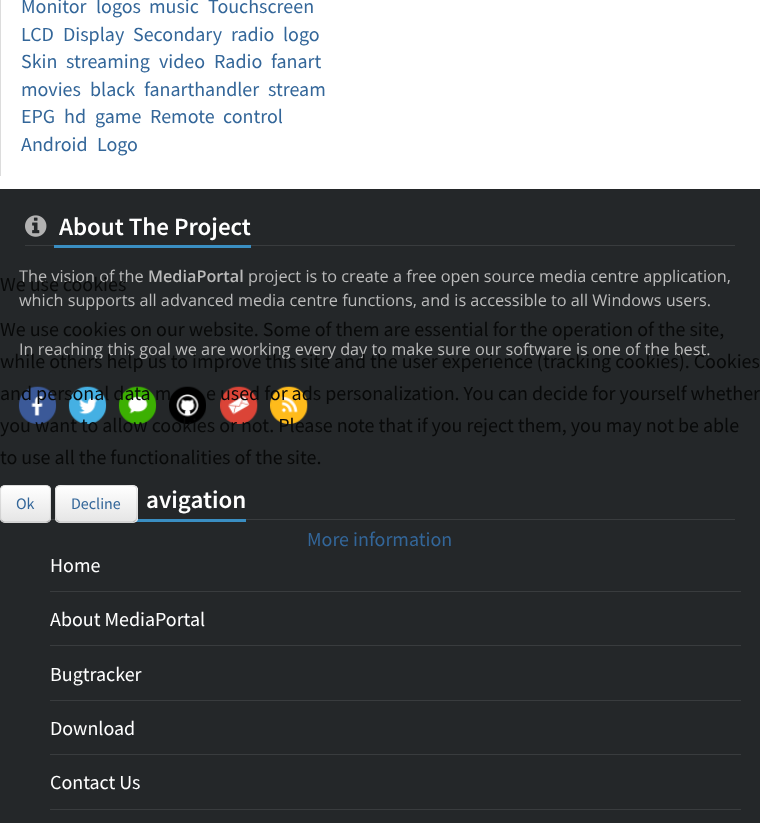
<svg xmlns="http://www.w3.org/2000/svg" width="760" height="823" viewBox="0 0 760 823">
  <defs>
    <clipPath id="clip1"><rect x="0" y="485" width="51" height="38" rx="5"/></clipPath>
    <linearGradient id="g1" gradientUnits="userSpaceOnUse" x1="26" y1="486" x2="26" y2="521"><stop offset="0" stop-color="rgb(255,255,255)"/><stop offset="1" stop-color="rgb(230,230,230)"/></linearGradient>
    <clipPath id="clip2"><rect x="55" y="485" width="83" height="38" rx="5"/></clipPath>
    <linearGradient id="g2" gradientUnits="userSpaceOnUse" x1="96" y1="486" x2="96" y2="521"><stop offset="0" stop-color="rgb(255,255,255)"/><stop offset="1" stop-color="rgb(230,230,230)"/></linearGradient>
  </defs>
  <rect width="100%" height="100%" fill="rgb(255,255,255)"/>
  <rect x="0" y="0" width="1" height="176" fill="rgb(220,220,220)"/>
  <g font-family="Source Sans Pro" font-size="20" fill="rgb(51,102,153)">
    <text x="21" y="13">Monitor</text>
    <text x="96" y="13">logos</text>
    <text x="149" y="13">music</text>
    <text x="208" y="13">Touchscreen</text>
    <text x="21" y="41">LCD</text>
    <text x="63" y="41">Display</text>
    <text x="133" y="41">Secondary</text>
    <text x="231" y="41">radio</text>
    <text x="283" y="41">logo</text>
    <text x="21" y="68">Skin</text>
    <text x="66" y="68">streaming</text>
    <text x="159" y="68">video</text>
    <text x="214" y="68">Radio</text>
    <text x="271" y="68">fanart</text>
    <text x="21" y="96">movies</text>
    <text x="90" y="96">black</text>
    <text x="144" y="96">fanarthandler</text>
    <text x="268" y="96">stream</text>
    <text x="21" y="123">EPG</text>
    <text x="64" y="123">hd</text>
    <text x="95" y="123">game</text>
    <text x="150" y="123">Remote</text>
    <text x="223" y="123">control</text>
    <text x="21" y="151">Android</text>
    <text x="97" y="151">Logo</text>
  </g>
  <rect x="0" y="189" width="760" height="634" fill="rgb(36,39,41)"/>
  <rect x="25" y="245" width="710" height="1" fill="rgb(57,60,62)"/>
  <image x="25" y="215" width="22" height="22" href="pic1.png"/>
  <text x="59" y="235" font-family="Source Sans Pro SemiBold" font-size="25" font-weight="600" fill="rgb(255,255,255)">About The Project</text>
  <rect x="54" y="245" width="197" height="3" fill="rgb(58,142,194)"/>
  <text x="19" y="282" font-family="Open Sans" font-size="16.25" fill="rgb(187,187,187)">The vision of the</text>
  <text x="148" y="282" font-family="Open Sans" font-size="16.25" font-weight="600" fill="rgb(187,187,187)">MediaPortal</text>
  <g font-family="Open Sans" font-size="16.25" fill="rgb(187,187,187)">
    <text x="248" y="282">project is to create a free open source media centre application,</text>
    <text x="19" y="306">which supports all advanced media centre functions, and is accessible to all Windows users.</text>
    <text x="19" y="355">In reaching this goal we are working every day to make sure our software is one of the best.</text>
  </g>
  <image x="18" y="386" width="39" height="38" href="pic2.png"/>
  <image x="68" y="386" width="39" height="38" href="pic3.png"/>
  <image x="118" y="386" width="39" height="38" href="pic4.png"/>
  <image x="169" y="386" width="37" height="38" href="pic5.png"/>
  <image x="220" y="386" width="38" height="38" href="pic6.png"/>
  <image x="270" y="386" width="38" height="38" href="pic7.png"/>
  <rect x="50" y="519" width="685" height="1" fill="rgb(57,60,62)"/>
  <text x="146" y="508" font-family="Source Sans Pro SemiBold" font-size="25" font-weight="600" fill="rgb(255,255,255)">avigation</text>
  <rect x="136" y="519" width="110" height="3" fill="rgb(58,142,194)"/>
  <rect x="50" y="591" width="691" height="1" fill="rgb(57,60,62)"/>
  <text x="50" y="572" font-family="Source Sans Pro" font-size="20" fill="rgb(255,255,255)">Home</text>
  <rect x="50" y="645" width="691" height="1" fill="rgb(57,60,62)"/>
  <text x="50" y="626" font-family="Source Sans Pro" font-size="20" fill="rgb(255,255,255)">About MediaPortal</text>
  <rect x="50" y="700" width="691" height="1" fill="rgb(57,60,62)"/>
  <text x="50" y="681" font-family="Source Sans Pro" font-size="20" fill="rgb(255,255,255)">Bugtracker</text>
  <rect x="50" y="754" width="691" height="1" fill="rgb(57,60,62)"/>
  <text x="50" y="735" font-family="Source Sans Pro" font-size="20" fill="rgb(255,255,255)">Download</text>
  <rect x="50" y="809" width="691" height="1" fill="rgb(57,60,62)"/>
  <text x="50" y="789" font-family="Source Sans Pro" font-size="20" fill="rgb(255,255,255)">Contact Us</text>
  <g font-family="Source Sans Pro" font-size="20" fill="rgb(8,9,9)">
    <text x="0" y="291">We use cookies</text>
    <text>
      <tspan x="0" y="336">We use cookies on our website. Some of them are essential for the operation of the site,</tspan>
      <tspan x="0" y="368">while others help us to improve this site and the user experience (tracking cookies). Cookies</tspan>
      <tspan x="0" y="400">and personal data m</tspan>
    </text>
    <text x="206" y="400">e used for ads personalization. You can decide for yourself whether</text>
    <text>
      <tspan x="0" y="432">you want to allow cookies or not. Please note that if you reject them, you may not be able</tspan>
      <tspan x="0" y="464">to use all the functionalities of the site.</tspan>
    </text>
  </g>
  <rect x="0" y="485" width="51" height="38" rx="5" fill="rgb(245,245,245)"/>
  <g clip-path="url(#clip1)">
    <rect x="0" y="486" width="51" height="35" fill="url(#g1)"/>
  </g>
  <path d="M49.5 520.5C48.5 521.5 47.5 522 46 522H5C4 522 2.5 521.5 2 520.5" fill="none" stroke="rgb(179,179,179)" stroke-width="1.2"/>
  <path d="M2 520.5C1 520 .5 518.5 .5 517.5V490C.5 489 1 487.5 2 487C2.5 486 4 485.5 5 485.5H46C47.5 485.5 48.5 486 49.5 487C50 487.5 50.5 489 50.5 490V517.5C50.5 518.5 50 520 49.5 520.5" fill="none" stroke="rgba(0,0,0,0.1)" stroke-width="1.2"/>
  <text x="16" y="509" font-family="Source Sans Pro" font-size="16" fill="rgb(51,102,153)">Ok</text>
  <rect x="55" y="485" width="83" height="38" rx="5" fill="rgb(245,245,245)"/>
  <g clip-path="url(#clip2)">
    <rect x="55" y="486" width="83" height="35" fill="url(#g2)"/>
  </g>
  <path d="M135.5 520.5L133 522H59.5L57 520.5" fill="none" stroke="rgb(179,179,179)" stroke-width="1.2"/>
  <path d="M57 520.5C55 518.5 55.5 515.5 55.5 513V504C55.5 484 52.5 485.5 72 485.5H120.5C140 485.5 137 484 137 504V513C137 515.5 137.5 518.5 135.5 520.5" fill="none" stroke="rgba(0,0,0,0.1)" stroke-width="1.2"/>
  <text x="71" y="509" font-family="Source Sans Pro" font-size="16" fill="rgb(51,102,153)">Decline</text>
  <text x="307" y="546" font-family="Source Sans Pro" font-size="20" fill="rgb(51,102,153)">More information</text>
</svg>
